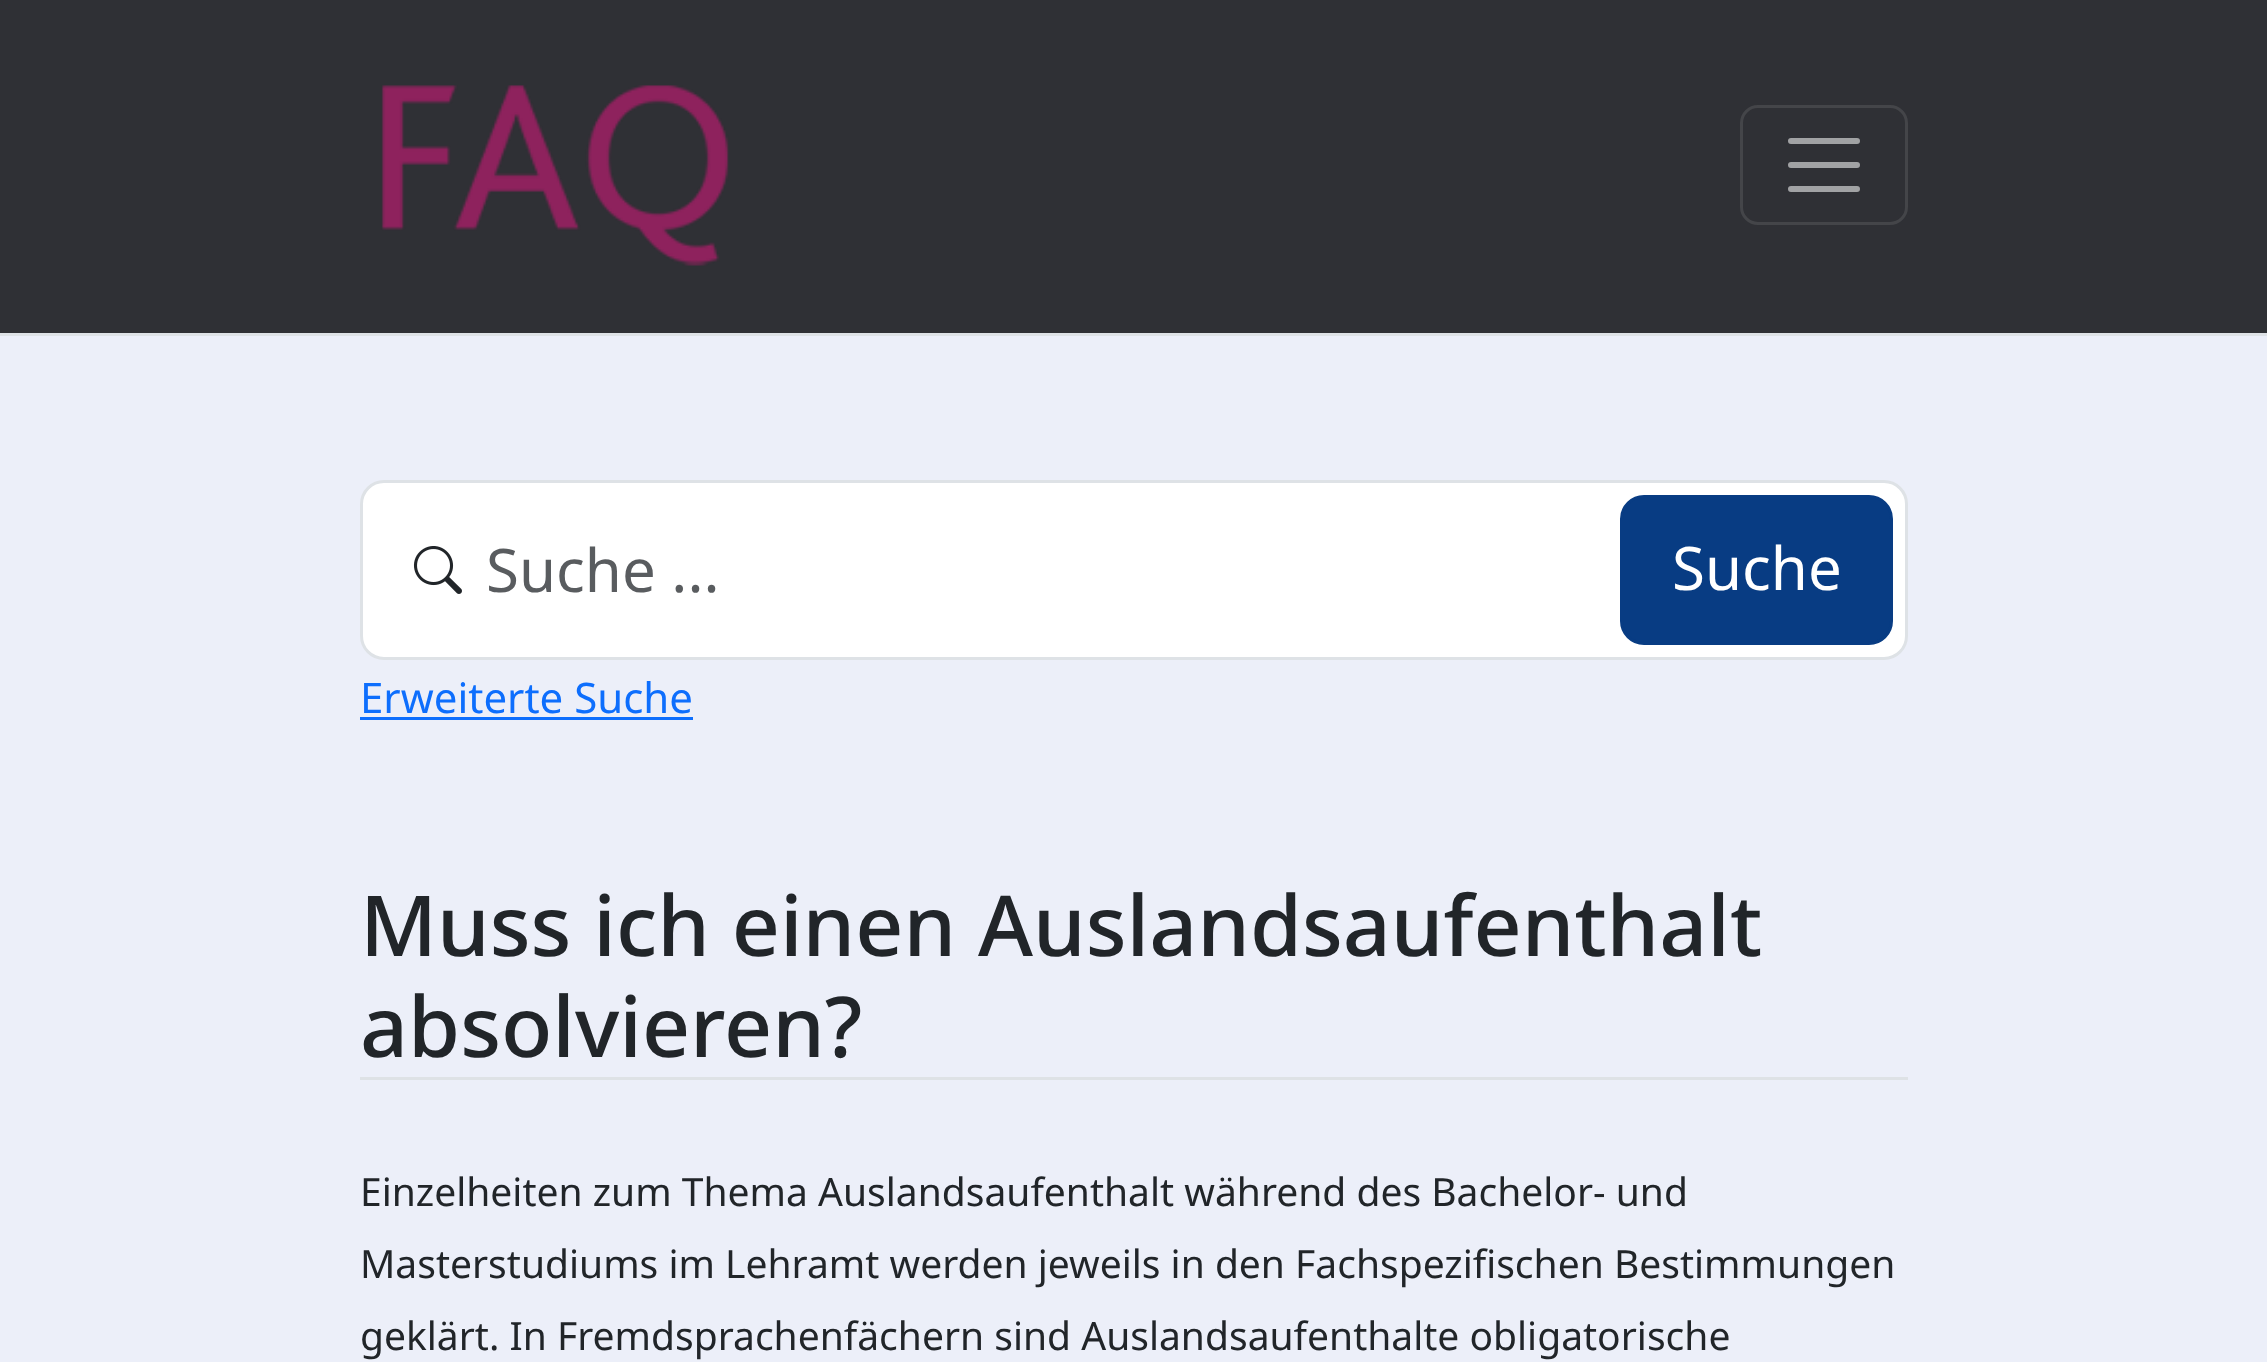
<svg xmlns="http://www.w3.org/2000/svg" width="2267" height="1362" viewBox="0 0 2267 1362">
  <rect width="100%" height="100%" fill="rgb(236,239,249)"/>
  <rect x="0" y="0" width="2267" height="333" fill="rgb(47,48,53)"/>
  <rect x="0" y="333" width="2267" height="3" fill="rgb(222,226,230)"/>
  <image x="381" y="85" width="348" height="181" href="pic1.png"/>
  <rect x="1741.5" y="106.5" width="165" height="117" rx="16.5" fill="none" stroke="rgb(68,69,73)" stroke-width="3"/>
  <path d="M1791 141H1857M1791 165H1857M1791 189H1857" fill="none" stroke="rgb(161,162,164)" stroke-width="6" stroke-linecap="round"/>
  <rect x="361.5" y="481.5" width="1545" height="177" rx="22.5" fill="rgb(255,255,255)" stroke="rgb(222,226,230)" stroke-width="3"/>
  <image x="413" y="546" width="49" height="48" href="pic2.png"/>
  <text x="486" y="592" font-family="Noto Sans" font-size="60" fill="rgb(89,92,95)">Suche ...</text>
  <rect x="1621.5" y="496.5" width="270" height="147" rx="22.5" fill="rgb(8,60,131)" stroke="rgb(8,60,131)" stroke-width="3"/>
  <text x="1672" y="590" font-family="Noto Sans" font-size="60" fill="rgb(255,255,255)">Suche</text>
  <text x="360" y="713" font-family="Noto Sans" font-size="42" fill="rgb(13,110,253)">Erweiterte Suche</text>
  <rect x="360" y="717" width="333" height="3" fill="rgb(13,110,253)"/>
  <rect x="360" y="1077" width="1548" height="3" fill="rgb(222,226,230)"/>
  <g font-family="Noto Sans" font-size="84" font-weight="500" fill="rgb(33,37,41)">
    <text>
      <tspan x="360" y="956">Muss ich einen Auslandsaufenthalt</tspan>
      <tspan x="360" y="1057">absolvieren?</tspan>
    </text>
  </g>
  <g font-family="Noto Sans" font-size="39" fill="rgb(33,37,41)">
    <text>
      <tspan x="360" y="1206">Einzelheiten zum Thema Auslandsaufenthalt während des Bachelor- und</tspan>
      <tspan x="360" y="1278">Masterstudiums im Lehramt werden jeweils in den Fachspezifischen Bestimmungen</tspan>
      <tspan x="360" y="1350">geklärt. In Fremdsprachenfächern sind Auslandsaufenthalte obligatorische</tspan>
    </text>
  </g>
</svg>
